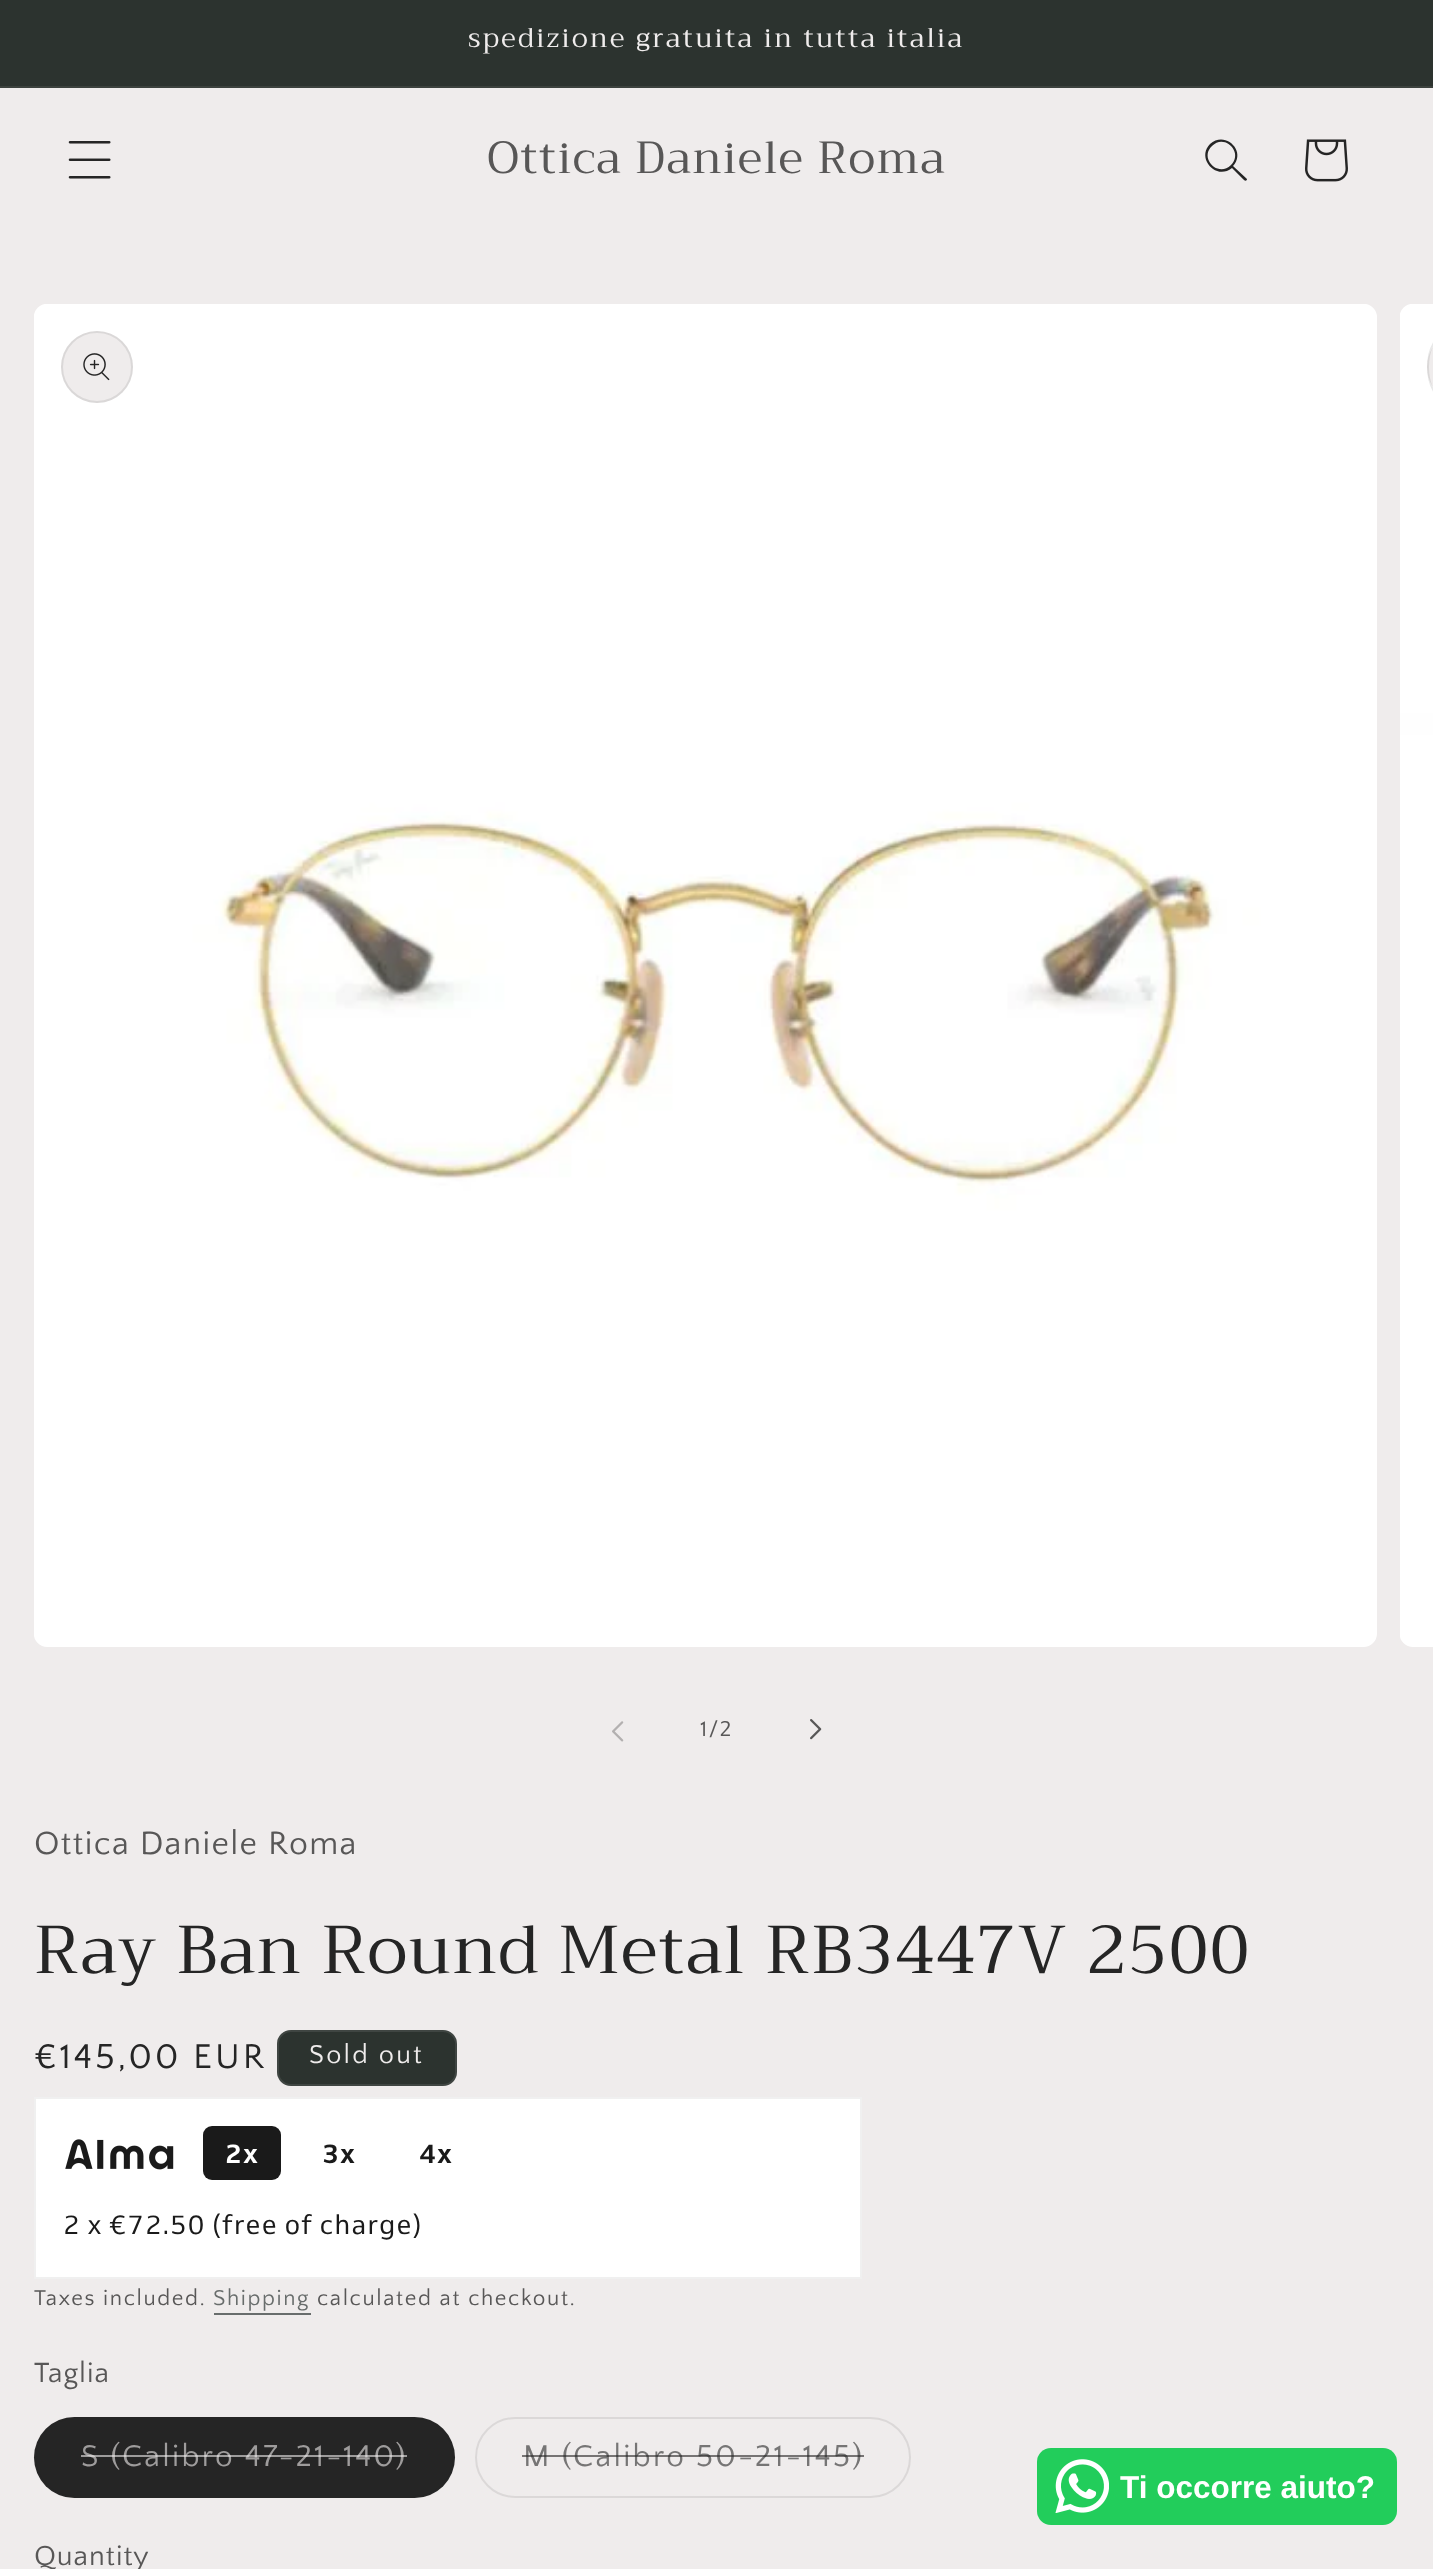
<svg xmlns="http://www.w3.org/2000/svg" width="1433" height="2569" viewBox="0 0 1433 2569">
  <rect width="100%" height="100%" fill="rgb(239,236,236)"/>
  <rect x="0" y="0" width="1433" height="86" fill="rgb(44,51,47)"/>
  <rect x="0" y="86" width="1433" height="2" fill="rgb(60,66,62)"/>
  <text x="468" y="47" font-family="Trirong" font-size="27" letter-spacing="2.25" fill="rgb(239,236,236)">spedizione gratuita in tutta italia</text>
  <image x="68" y="141" width="43" height="38" href="pic1.png"/>
  <text x="487" y="173" font-family="Trirong" font-size="45" letter-spacing="1.35" fill="rgb(88,87,87)">Ottica Daniele Roma</text>
  <path d="M1231 165C1218 178 1199 158 1212 146C1224 133 1244 152 1231 165M1232 168C1216 181 1196 158 1210 144C1225 130 1247 151 1233 166L1247 179C1247 181 1245 181 1244 180Z" fill="rgb(37,37,37)" fill-rule="evenodd"/>
  <image x="1305" y="139" width="43" height="43" href="pic2.png"/>
  <image x="34" y="304" width="1343" height="1343" href="pic3.png"/>
  <circle cx="97" cy="367" r="36" fill="rgb(239,236,236)"/>
  <circle cx="97" cy="367" r="35" fill="none" stroke="rgba(37,37,37,0.1)" stroke-width="2"/>
  <image x="83" y="353" width="27" height="28" href="pic4.png"/>
  <image x="1400" y="304" width="33" height="1343" href="pic5.png"/>
  <path d="M1463 331H1433V403H1463C1443 403 1427 387 1427 367C1427 347 1443 331 1463 331Z" fill="rgb(239,236,236)"/>
  <rect x="1428" y="332" width="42" height="70" rx="35" fill="none" stroke="rgba(37,37,37,0.1)" stroke-width="2"/>
  <image x="612" y="1721" width="12" height="21" href="pic6.png"/>
  <text x="700" y="1736" font-family="Quattrocento Sans" font-size="22.5" letter-spacing="1.6" fill="rgb(88,87,87)">1/2</text>
  <image x="810" y="1719" width="12" height="21" href="pic7.png"/>
  <text x="34" y="1854" font-family="Quattrocento Sans" font-size="33.75" letter-spacing="1.35" fill="rgb(88,87,87)">Ottica Daniele Roma</text>
  <text x="34" y="1973" font-family="Trirong" font-size="67.5" letter-spacing="1.35" fill="rgb(37,37,37)">Ray Ban Round Metal RB3447V 2500</text>
  <text x="34" y="2068" font-family="Quattrocento Sans" font-size="36" letter-spacing="3" fill="rgb(37,37,37)">€145,00 EUR</text>
  <rect x="277" y="2030" width="180" height="56" rx="14" fill="rgb(44,51,47)"/>
  <rect x="278" y="2031" width="178" height="54" rx="13" fill="none" stroke="rgba(239,236,236,0.1)" stroke-width="2"/>
  <text x="309" y="2063" font-family="Quattrocento Sans" font-size="27" letter-spacing="2.25" fill="rgb(239,236,236)">Sold out</text>
  <rect x="35" y="2098" width="826" height="180" fill="rgb(255,255,255)" stroke="rgb(240,240,240)" stroke-width="2"/>
  <image x="65" y="2139" width="109" height="31" href="pic8.png"/>
  <rect x="203" y="2126" width="78" height="54" rx="9" fill="rgb(26,26,26)"/>
  <text x="225" y="2163" font-family="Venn" font-size="27" font-weight="bold" letter-spacing="1.35" fill="rgb(255,255,255)">2x</text>
  <g font-family="Venn" font-size="27" font-weight="bold" letter-spacing="1.35" fill="rgb(26,26,26)">
    <text x="322" y="2163">3x</text>
    <text x="419" y="2163">4x</text>
  </g>
  <text x="63" y="2234" font-family="Venn" font-size="27" letter-spacing="1.35" fill="rgb(26,26,26)">2 x €72.50 (free of charge)</text>
  <text x="34" y="2305" font-family="Quattrocento Sans" font-size="22.5" letter-spacing="1.6" fill="rgb(88,87,87)">Taxes included.</text>
  <text x="213" y="2305" font-family="Quattrocento Sans" font-size="22.5" letter-spacing="1.6" fill="rgb(104,109,108)">Shipping</text>
  <rect x="214" y="2313" width="97" height="2" fill="rgb(104,109,108)"/>
  <text x="317" y="2305" font-family="Quattrocento Sans" font-size="22.5" letter-spacing="1.6" fill="rgb(88,87,87)">calculated at checkout.</text>
  <text x="34" y="2382" font-family="Quattrocento Sans" font-size="29" letter-spacing="1" fill="rgb(88,87,87)">Taglia</text>
  <rect x="34" y="2417" width="421" height="81" rx="40.5" fill="rgb(37,37,37)"/>
  <rect x="35" y="2418" width="419" height="79" rx="39.5" fill="none" stroke="rgba(37,37,37,0.1)" stroke-width="2"/>
  <text x="81" y="2466" font-family="Quattrocento Sans" font-size="31.5" letter-spacing="2.25" fill="rgb(158,156,156)">S (Calibro 47-21-140)</text>
  <rect x="81" y="2455" width="326" height="2" fill="rgba(239,236,236,0.6)"/>
  <rect x="476" y="2418" width="434" height="79" rx="39.5" fill="none" stroke="rgb(219,216,216)" stroke-width="2"/>
  <text x="523" y="2466" font-family="Quattrocento Sans" font-size="31.5" letter-spacing="2.25" fill="rgb(118,117,117)">M (Calibro 50-21-145)</text>
  <rect x="522" y="2455" width="342" height="2" fill="rgba(37,37,37,0.6)"/>
  <text x="34" y="2565" font-family="Quattrocento Sans" font-size="29" letter-spacing="1" fill="rgb(88,87,87)">Quantity</text>
  <rect x="1037" y="2448" width="360" height="77" rx="14" fill="rgb(34,205,91)"/>
  <image x="1055" y="2459" width="54" height="54" href="pic9.png"/>
  <text x="1120" y="2498" font-family="Liberation Sans" font-size="31.5" font-weight="bold" fill="rgb(255,255,255)">Ti occorre aiuto?</text>
</svg>
